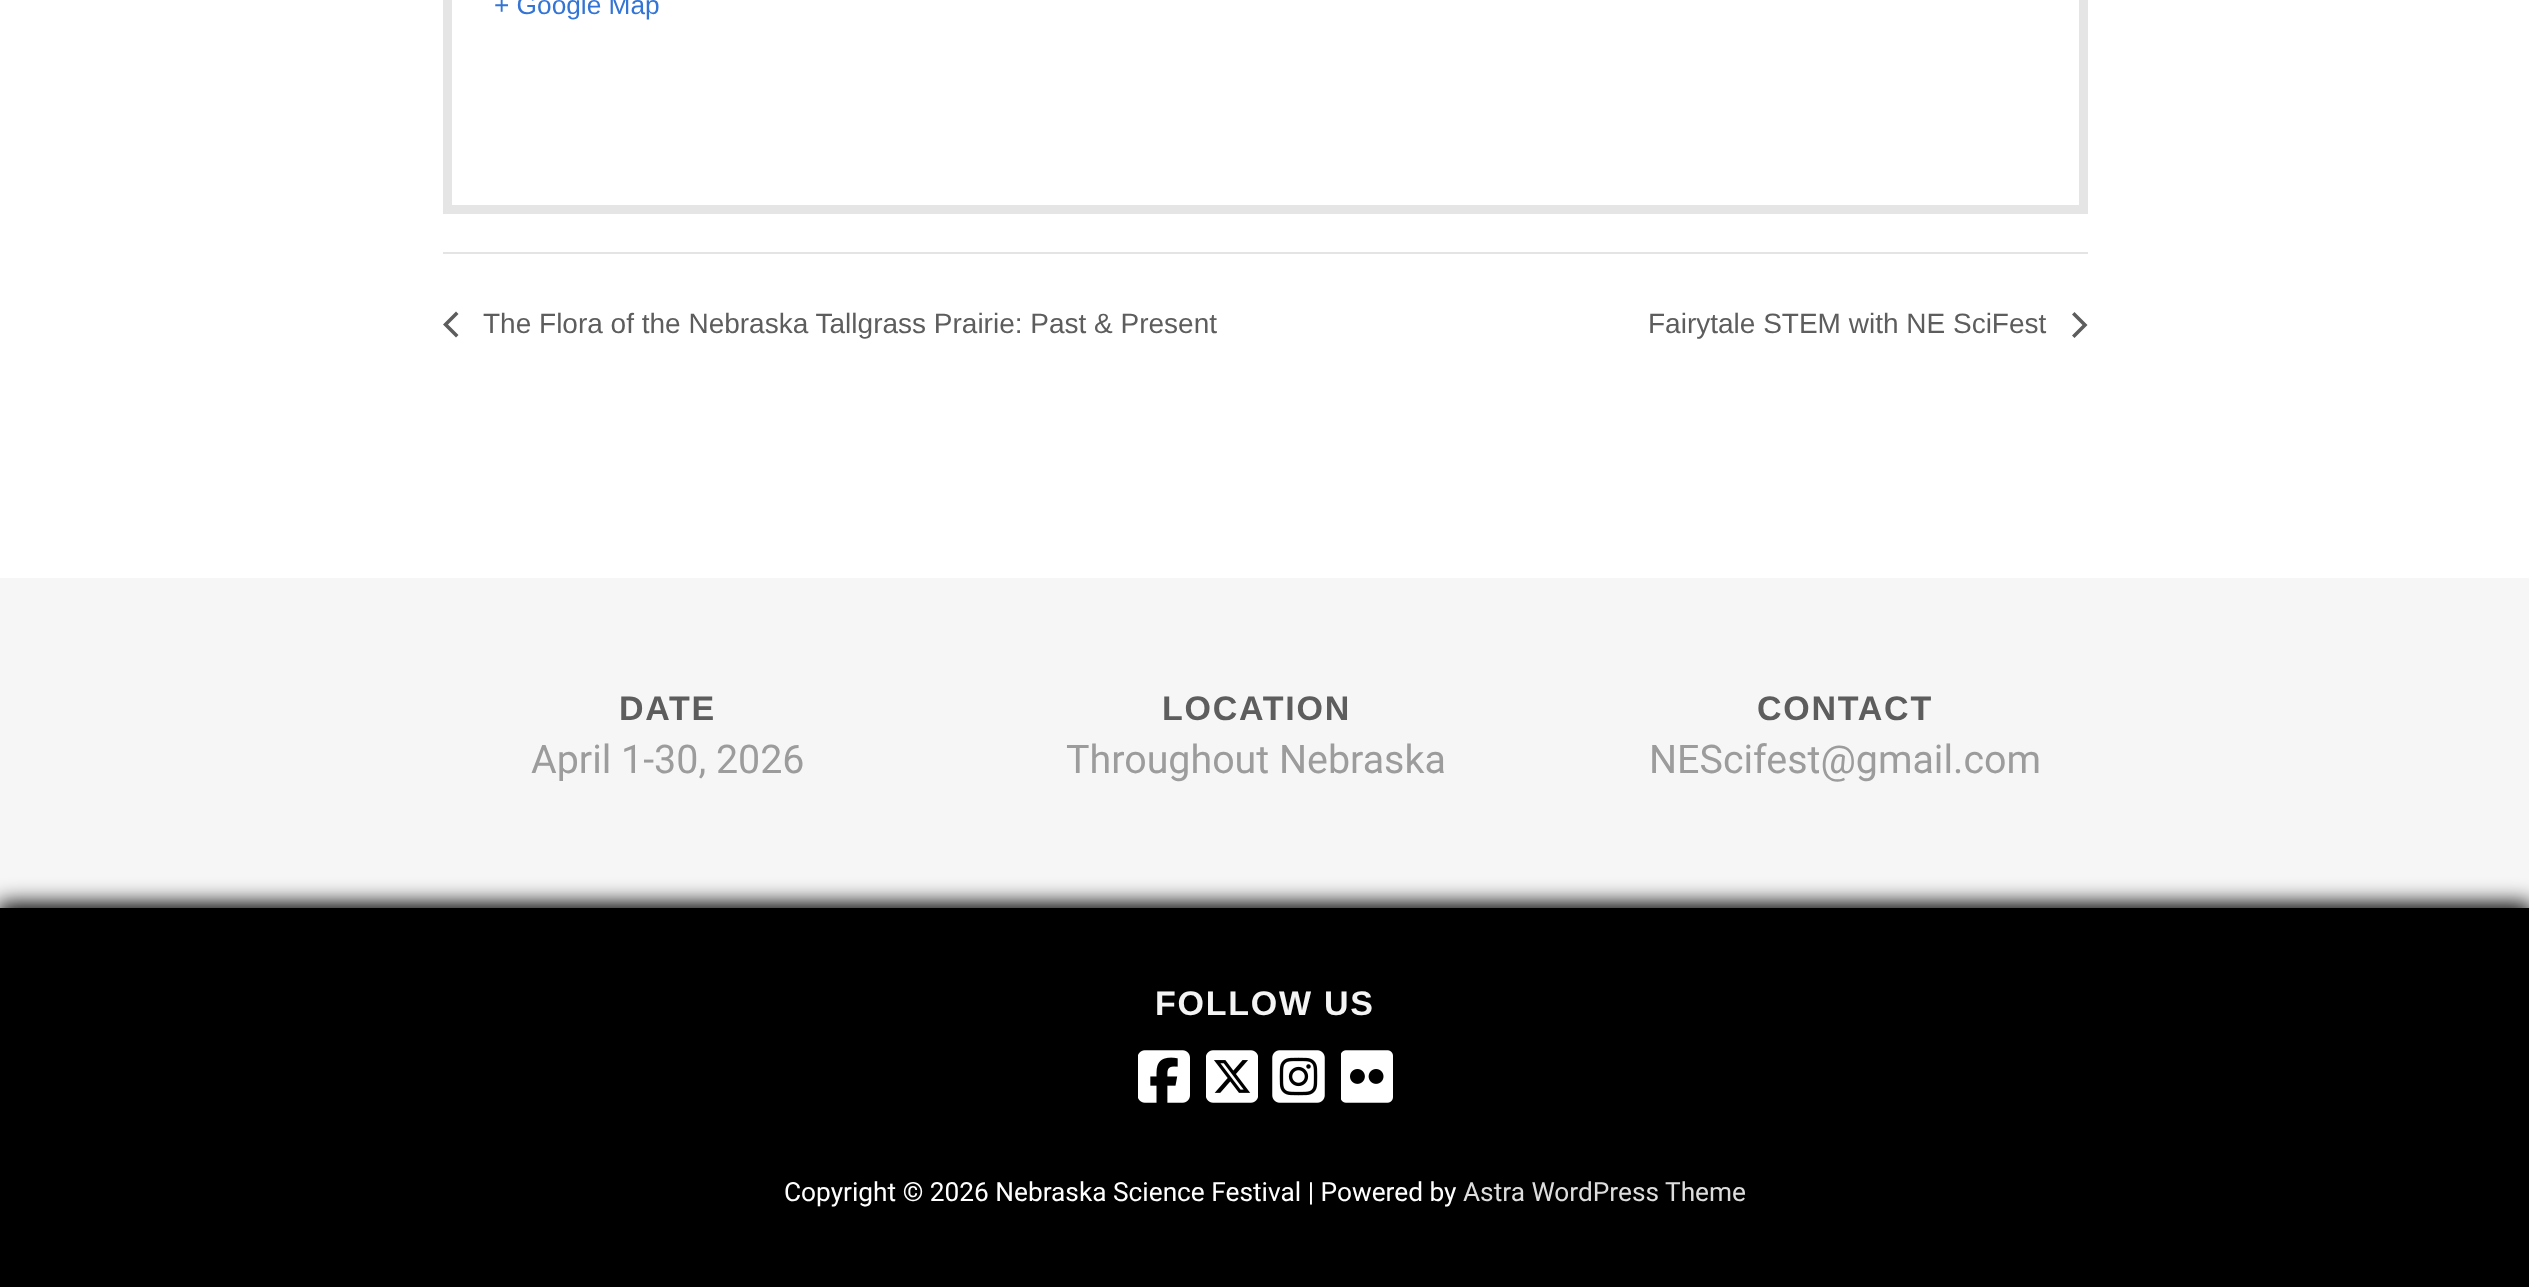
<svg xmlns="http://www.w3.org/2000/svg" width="2529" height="1287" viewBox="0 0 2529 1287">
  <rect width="100%" height="100%" fill="rgb(255,255,255)"/>
  <rect x="447.5" y="-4.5" width="1636" height="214" fill="none" stroke="rgb(229,229,229)" stroke-width="9"/>
  <text x="494" y="14" font-family="Liberation Sans" font-size="26.25" fill="rgb(51,116,212)">+ Google Map</text>
  <rect x="443" y="252" width="1645" height="2" fill="rgb(228,228,228)"/>
  <path d="M458.5 335L456 337.5L443 324.5L456 311.5L458.5 314L448 324.5Z" fill="rgb(93,93,93)"/>
  <g font-family="Liberation Sans" font-size="28" fill="rgb(93,93,93)">
    <text x="483" y="333">The Flora of the Nebraska Tallgrass Prairie: Past &amp; Present</text>
    <text x="1648" y="333">Fairytale STEM with NE SciFest</text>
  </g>
  <path d="M2072 314.5L2074.5 312L2087.5 325L2074.5 338L2072 335.5L2082.5 325Z" fill="rgb(93,93,93)"/>
  <rect x="0" y="578" width="2529" height="330" fill="rgb(246,246,246)"/>
  <text x="619" y="720" font-family="Liberation Sans" font-size="34" font-weight="bold" letter-spacing="1.75" fill="rgb(93,93,93)">DATE</text>
  <text x="531" y="773" font-family="Roboto" font-size="39.4" fill="rgb(156,156,156)">April 1-30, 2026</text>
  <text x="1162" y="720" font-family="Liberation Sans" font-size="34" font-weight="bold" letter-spacing="1.75" fill="rgb(93,93,93)">LOCATION</text>
  <text x="1066" y="773" font-family="Roboto" font-size="39.4" fill="rgb(156,156,156)">Throughout Nebraska</text>
  <text x="1757" y="720" font-family="Liberation Sans" font-size="34" font-weight="bold" letter-spacing="1.75" fill="rgb(93,93,93)">CONTACT</text>
  <text x="1649" y="773" font-family="Roboto" font-size="39.4" fill="rgb(156,156,156)">NEScifest@gmail.com</text>
  <rect x="-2" y="903" width="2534" height="383" fill="rgb(0,0,0)" filter="blur(10.5px)"/>
  <rect x="0" y="908" width="2529" height="379" fill="rgb(0,0,0)"/>
  <text x="1155" y="1015" font-family="Liberation Sans" font-size="34" font-weight="bold" letter-spacing="1.75" fill="rgb(244,244,244)">FOLLOW US</text>
  <image x="1138" y="1050" width="52" height="53" href="pic1.png"/>
  <image x="1206" y="1050" width="52" height="53" href="pic2.png"/>
  <image x="1272" y="1050" width="53" height="53" href="pic3.png"/>
  <image x="1341" y="1050" width="52" height="53" href="pic4.png"/>
  <text x="784" y="1201" font-family="Roboto" font-size="26.25" fill="rgb(255,255,255)">Copyright © 2026 Nebraska Science Festival | Powered by</text>
  <text x="1463" y="1201" font-family="Roboto" font-size="26.25" fill="rgb(221,221,221)">Astra WordPress Theme</text>
</svg>
